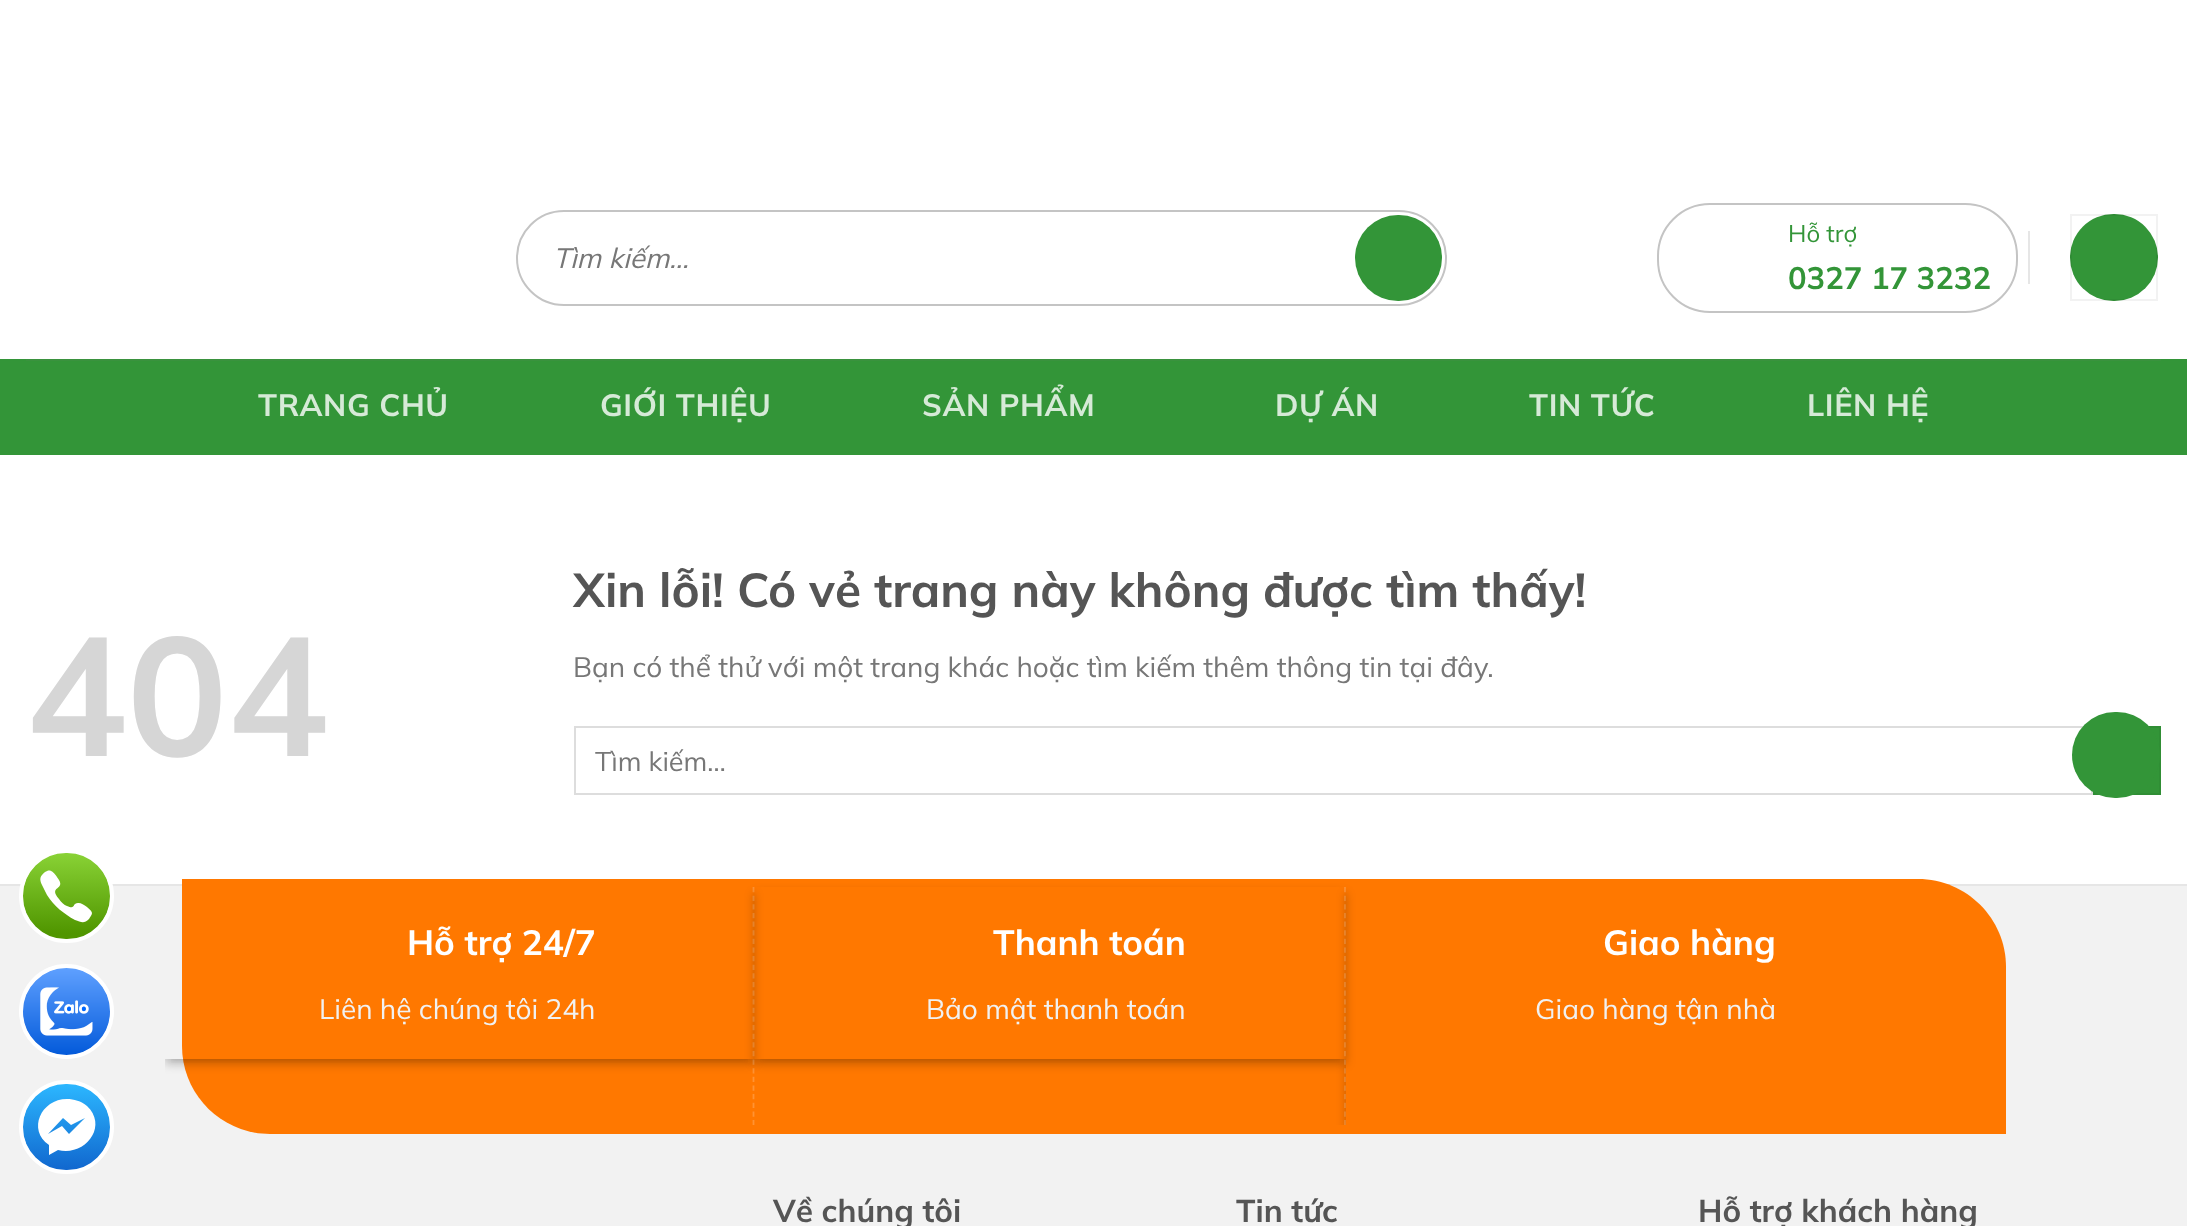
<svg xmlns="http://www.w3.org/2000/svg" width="2187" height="1226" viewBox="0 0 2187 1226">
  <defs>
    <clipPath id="clip1"><rect x="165" y="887" width="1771" height="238"/></clipPath>
    <clipPath id="clip2"><path d="M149 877H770V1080H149ZM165 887H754V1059H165Z" clip-rule="evenodd"/></clipPath>
    <clipPath id="clip3"><rect x="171" y="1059" width="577" height="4"/></clipPath>
    <clipPath id="clip4"><path d="M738 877H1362V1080H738ZM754 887H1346V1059H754Z" clip-rule="evenodd"/></clipPath>
    <clipPath id="clip5"><rect x="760" y="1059" width="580" height="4"/></clipPath>
    <clipPath id="clip6"><path d="M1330 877H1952V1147H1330ZM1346 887H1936V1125H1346Z" clip-rule="evenodd"/></clipPath>
    <linearGradient id="g1" gradientUnits="userSpaceOnUse" x1="67" y1="852" x2="67" y2="933"><stop offset="0" stop-color="rgb(138,211,54)"/><stop offset="1" stop-color="rgb(80,150,0)"/></linearGradient>
    <linearGradient id="g2" gradientUnits="userSpaceOnUse" x1="66" y1="1169" x2="66" y2="1084"><stop offset="0" stop-color="rgb(17,104,207)"/><stop offset="1" stop-color="rgb(44,183,255)"/></linearGradient>
  </defs>
  <rect width="100%" height="100%" fill="rgb(255,255,255)"/>
  <rect x="517" y="211" width="929" height="94" rx="47" fill="none" stroke="rgb(196,196,196)" stroke-width="2"/>
  <text x="553" y="268" font-family="Mulish" font-size="28" font-style="italic" fill="rgb(119,119,119)">Tìm kiếm…</text>
  <rect x="1355" y="215" width="87" height="86" rx="43" fill="rgb(51,149,56)"/>
  <rect x="1658" y="204" width="359" height="108" rx="52" fill="none" stroke="rgb(196,196,196)" stroke-width="2"/>
  <text x="1788" y="242" font-family="Mulish" font-size="24" fill="rgb(51,149,56)">Hỗ trợ</text>
  <text x="1788" y="289" font-family="Mulish" font-size="31" font-weight="bold" fill="rgb(51,149,56)">0327 17 3232</text>
  <rect x="2028" y="231" width="2" height="53" fill="rgb(230,230,230)"/>
  <rect x="2070" y="214" width="88" height="87" rx="43.5" fill="rgb(51,149,56)"/>
  <rect x="2071" y="215" width="86" height="85" fill="none" stroke="rgba(0,0,0,0.05)" stroke-width="2"/>
  <rect x="0" y="359" width="2187" height="96" fill="rgb(51,149,56)"/>
  <rect x="26" y="359" width="2135" height="2" fill="rgb(58,146,62)"/>
  <g font-family="Mulish" font-size="30.75" font-weight="bold" letter-spacing="0.6" fill="rgb(214,234,215)">
    <text x="258" y="416">TRANG CHỦ</text>
    <text x="600" y="416">GIỚI THIỆU</text>
    <text x="922" y="416">SẢN PHẨM</text>
    <text x="1275" y="416">DỰ ÁN</text>
    <text x="1529" y="416">TIN TỨC</text>
    <text x="1807" y="416">LIÊN HỆ</text>
  </g>
  <text x="26" y="756" font-family="Mulish" font-size="168" font-weight="bold" fill="rgb(214,214,214)">404</text>
  <text x="573" y="607" font-family="Mulish" font-size="47.6" font-weight="bold" fill="rgb(85,85,85)">Xin lỗi! Có vẻ trang này không được tìm thấy!</text>
  <text x="573" y="677" font-family="Mulish" font-size="28" fill="rgb(119,119,119)">Bạn có thể thử với một trang khác hoặc tìm kiếm thêm thông tin tại đây.</text>
  <rect x="575" y="727" width="1517" height="67" fill="none" stroke="rgb(221,221,221)" stroke-width="2"/>
  <text x="595" y="771" font-family="Mulish" font-size="27" fill="rgb(119,119,119)">Tìm kiếm…</text>
  <rect x="2137" y="728" width="22" height="65" fill="rgb(51,149,56)"/>
  <rect x="2094" y="727" width="66" height="67" fill="none" stroke="rgb(48,142,53)" stroke-width="2"/>
  <rect x="2072" y="712" width="88" height="86" rx="43" fill="rgb(51,149,56)"/>
  <rect x="0" y="886" width="2187" height="340" fill="rgb(242,242,242)"/>
  <rect x="0" y="884" width="2187" height="2" fill="rgb(230,230,230)"/>
  <path d="M182 879H1918C1966.5 879 2006 918.5 2006 967V1134H270C221.5 1134 182 1094.5 182 1046Z" fill="rgb(255,120,0)"/>
  <g clip-path="url(#clip1)">
    <g clip-path="url(#clip2)">
      <rect x="165" y="893" width="589" height="171" fill="rgba(0,0,0,0.23)" filter="blur(5px)"/>
    </g>
  </g>
  <g clip-path="url(#clip3)">
    <rect x="172" y="900" width="575" height="157" fill="rgba(0,0,0,0.16)" filter="blur(5px)"/>
  </g>
  <text x="407" y="955" font-family="Mulish" font-size="35" font-weight="bold" fill="rgb(255,255,255)">Hỗ trợ 24/7</text>
  <text x="319" y="1019" font-family="Mulish" font-size="28" fill="rgb(241,241,241)">Liên hệ chúng tôi 24h</text>
  <path d="M753.5 887V1125" fill="none" stroke="rgba(255,255,255,0.2)" stroke-width="1.8" stroke-dasharray="5.25 3.38"/>
  <g clip-path="url(#clip4)">
    <rect x="754" y="893" width="592" height="171" fill="rgba(0,0,0,0.23)" filter="blur(5px)"/>
  </g>
  <g clip-path="url(#clip5)">
    <rect x="761" y="900" width="578" height="157" fill="rgba(0,0,0,0.16)" filter="blur(5px)"/>
  </g>
  <text x="993" y="955" font-family="Mulish" font-size="35" font-weight="bold" fill="rgb(255,255,255)">Thanh toán</text>
  <text x="926" y="1019" font-family="Mulish" font-size="28" fill="rgb(241,241,241)">Bảo mật thanh toán</text>
  <path d="M1345 887V1125" fill="none" stroke="rgba(255,255,255,0.2)" stroke-width="1.8" stroke-dasharray="5.25 3.38"/>
  <g clip-path="url(#clip1)">
    <g clip-path="url(#clip6)">
      <rect x="1346" y="893" width="590" height="238" fill="rgba(0,0,0,0.23)" filter="blur(5px)"/>
    </g>
  </g>
  <text x="1603" y="955" font-family="Mulish" font-size="35" font-weight="bold" fill="rgb(255,255,255)">Giao hàng</text>
  <text x="1535" y="1019" font-family="Mulish" font-size="28" fill="rgb(241,241,241)">Giao hàng tận nhà</text>
  <g font-family="Mulish" font-size="31.5" font-weight="bold" fill="rgb(85,85,85)">
    <text x="773" y="1222">Về chúng tôi</text>
    <text x="1236" y="1222">Tin tức</text>
    <text x="1698" y="1222">Hỗ trợ khách hàng</text>
  </g>
  <circle cx="66.5" cy="896" r="44" fill="url(#g1)"/>
  <path d="M51 871C54 872 57 877 59 880C65 890 48 886 59 899C61 902 64 905 67 906C76 910 72 903 78 903C82 902 92 910 92 913C92 915 90 917 89 919C84 924 81 922 75 920C64 914 54 906 47 895L42 885C39 879 40 876 45 872C47 871 49 870 51 871Z" fill="rgb(255,255,255)" fill-rule="evenodd"/>
  <rect x="21" y="851" width="91" height="90" rx="45" fill="none" stroke="rgb(255,255,255)" stroke-width="4"/>
  <image x="23" y="968" width="87" height="87" href="pic1.png"/>
  <circle cx="66.5" cy="1011.5" r="45.5" fill="none" stroke="rgb(255,255,255)" stroke-width="4"/>
  <circle cx="66.5" cy="1127" r="44" fill="url(#g2)"/>
  <path d="M67 1099C41 1099 27 1130 49 1145V1155L58 1150C84 1157 109 1127 87 1106C81 1101 74 1099 67 1099ZM69 1134L62 1126L48 1134L63 1118L71 1125L85 1118Z" fill="rgb(255,255,255)" fill-rule="evenodd"/>
  <rect x="21" y="1082" width="91" height="90" rx="45" fill="none" stroke="rgb(255,255,255)" stroke-width="4"/>
</svg>
